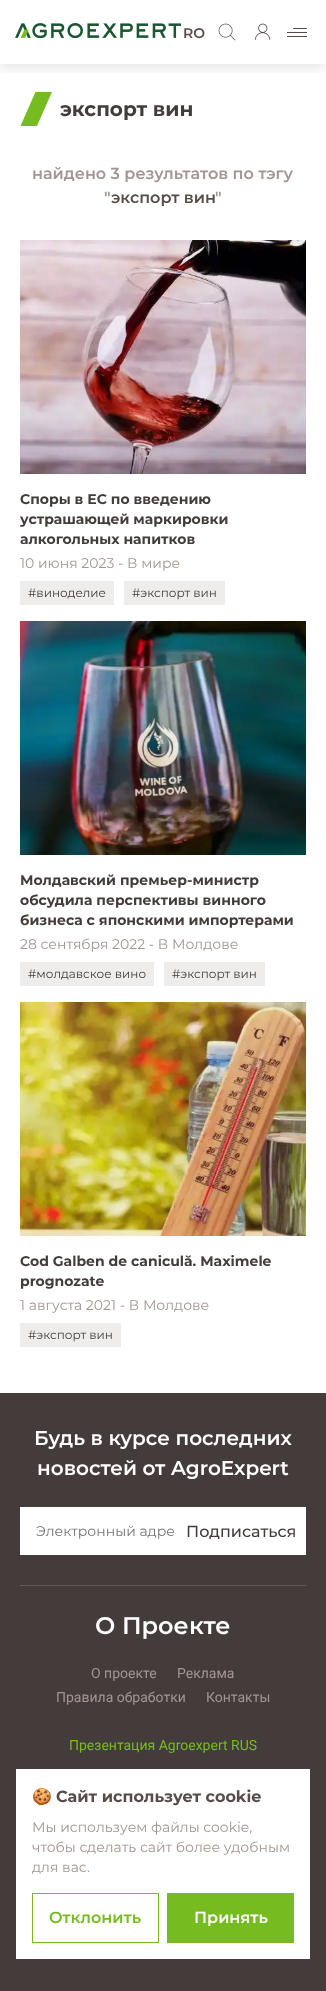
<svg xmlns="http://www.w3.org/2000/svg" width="326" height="1991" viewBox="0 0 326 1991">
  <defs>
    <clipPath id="clip1"><rect x="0" y="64" width="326" height="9"/></clipPath>
    <clipPath id="clip2"><rect x="20" y="92" width="32" height="34"/></clipPath>
  </defs>
  <rect width="100%" height="100%" fill="rgb(255,255,255)"/>
  <g clip-path="url(#clip1)">
    <rect x="0" y="4" width="326" height="64" fill="rgba(0,0,0,0.1)" filter="blur(6px)"/>
  </g>
  <image x="15" y="23" width="166" height="15" href="pic1.png"/>
  <text x="183" y="38" font-family="Montserrat" font-size="14" font-weight="600" fill="rgb(86,77,74)">RO</text>
  <image x="218" y="23" width="18" height="18" href="pic2.png"/>
  <image x="254" y="23" width="17" height="17" href="pic3.png"/>
  <rect x="287" y="32" width="20" height="1" fill="rgb(86,77,74)"/>
  <rect x="293" y="28" width="14" height="1" fill="rgb(86,77,74)"/>
  <rect x="287" y="36" width="20" height="1" fill="rgb(86,77,74)"/>
  <g clip-path="url(#clip2)">
    <path d="M20 127H36.5L52 92H35.5Z" fill="rgb(118,188,33)"/>
  </g>
  <text x="60" y="116" font-family="Montserrat" font-size="20" font-weight="bold" fill="rgb(68,60,58)">экспорт вин</text>
  <g font-family="Montserrat" font-size="16" font-weight="600" fill="rgb(163,149,145)">
    <text x="32" y="179">найдено 3 результатов по тэгу</text>
    <text x="104" y="203">"</text>
  </g>
  <text x="111" y="203" font-family="Montserrat" font-size="16" font-weight="600" fill="rgb(86,77,74)">экспорт вин</text>
  <text x="215" y="203" font-family="Montserrat" font-size="16" font-weight="600" fill="rgb(163,149,145)">"</text>
  <image x="20" y="240" width="286" height="234" href="pic4.png"/>
  <g font-family="Montserrat" font-size="14" font-weight="bold" fill="rgb(68,60,58)">
    <text>
      <tspan x="20" y="504">Споры в ЕС по введению</tspan>
      <tspan x="20" y="524">устрашающей маркировки</tspan>
      <tspan x="20" y="544">алкогольных напитков</tspan>
    </text>
  </g>
  <text x="20" y="568" font-family="Montserrat" font-size="14" fill="rgb(163,149,145)">10 июня 2023 - В мире</text>
  <rect x="20" y="581" width="94" height="24" fill="rgb(238,237,236)"/>
  <text x="28" y="597" font-family="Montserrat" font-size="12" fill="rgb(68,60,58)">#виноделие</text>
  <rect x="124" y="581" width="101" height="24" fill="rgb(238,237,236)"/>
  <text x="132" y="597" font-family="Montserrat" font-size="12" fill="rgb(68,60,58)">#экспорт вин</text>
  <image x="20" y="621" width="286" height="234" href="pic5.png"/>
  <g font-family="Montserrat" font-size="14" font-weight="bold" fill="rgb(68,60,58)">
    <text>
      <tspan x="20" y="885">Молдавский премьер-министр</tspan>
      <tspan x="20" y="905">обсудила перспективы винного</tspan>
      <tspan x="20" y="925">бизнеса с японскими импортерами</tspan>
    </text>
  </g>
  <text x="20" y="949" font-family="Montserrat" font-size="14" fill="rgb(163,149,145)">28 сентября 2022 - В Молдове</text>
  <rect x="20" y="962" width="134" height="24" fill="rgb(238,237,236)"/>
  <text x="28" y="978" font-family="Montserrat" font-size="12" fill="rgb(68,60,58)">#молдавское вино</text>
  <rect x="164" y="962" width="101" height="24" fill="rgb(238,237,236)"/>
  <text x="172" y="978" font-family="Montserrat" font-size="12" fill="rgb(68,60,58)">#экспорт вин</text>
  <image x="20" y="1002" width="286" height="234" href="pic6.png"/>
  <g font-family="Montserrat" font-size="14" font-weight="bold" fill="rgb(68,60,58)">
    <text>
      <tspan x="20" y="1266">Cod Galben de caniculă. Maximele</tspan>
      <tspan x="20" y="1286">prognozate</tspan>
    </text>
  </g>
  <text x="20" y="1310" font-family="Montserrat" font-size="14" fill="rgb(163,149,145)">1 августа 2021 - В Молдове</text>
  <rect x="20" y="1323" width="101" height="24" fill="rgb(238,237,236)"/>
  <text x="28" y="1339" font-family="Montserrat" font-size="12" fill="rgb(68,60,58)">#экспорт вин</text>
  <rect x="0" y="1393" width="326" height="598" fill="rgb(68,60,58)"/>
  <g font-family="Montserrat" font-size="20" font-weight="600" fill="rgb(255,255,255)">
    <text x="34" y="1445">Будь в курсе последних</text>
    <text x="37" y="1475">новостей от AgroExpert</text>
  </g>
  <rect x="20" y="1507" width="286" height="48" fill="rgb(255,255,255)"/>
  <text x="36" y="1536" font-family="Montserrat" font-size="14" fill="rgb(117,117,117)">Электронный адре</text>
  <text x="186" y="1537" font-family="Montserrat" font-size="16" font-weight="500" fill="rgb(68,60,58)">Подписаться</text>
  <rect x="20" y="1585" width="286" height="1" fill="rgb(97,87,84)"/>
  <text x="95" y="1634" font-family="Montserrat" font-size="24" font-weight="600" fill="rgb(255,255,255)">О Проекте</text>
  <g font-family="Roboto" font-size="14" fill="rgb(163,149,145)">
    <text x="91" y="1678">О проекте</text>
    <text x="177" y="1678">Реклама</text>
    <text x="56" y="1702">Правила обработки</text>
    <text x="206" y="1702">Контакты</text>
  </g>
  <text x="69" y="1750" font-family="Roboto" font-size="14" fill="rgb(118,188,33)">Презентация Agroexpert RUS</text>
  <rect x="16" y="1769" width="294" height="190" fill="rgb(255,255,255)"/>
  <text x="32" y="1802" font-family="Noto Color Emoji" font-size="16" font-weight="bold" fill="rgb(86,77,74)">🍪</text>
  <text x="56" y="1802" font-family="Montserrat" font-size="16" font-weight="bold" fill="rgb(86,77,74)">Сайт использует cookie</text>
  <g font-family="Montserrat" font-size="14" fill="rgb(163,149,145)">
    <text>
      <tspan x="32" y="1832">Мы используем файлы cookie,</tspan>
      <tspan x="32" y="1852">чтобы сделать сайт более удобным</tspan>
      <tspan x="32" y="1872">для вас.</tspan>
    </text>
  </g>
  <rect x="32.5" y="1893.5" width="126" height="49" fill="none" stroke="rgb(118,188,33)"/>
  <text x="49" y="1923" font-family="Montserrat" font-size="16" font-weight="600" fill="rgb(118,188,33)">Отклонить</text>
  <rect x="167" y="1893" width="127" height="50" fill="rgb(118,188,33)"/>
  <text x="194" y="1923" font-family="Montserrat" font-size="16" font-weight="600" fill="rgb(255,255,255)">Принять</text>
</svg>
